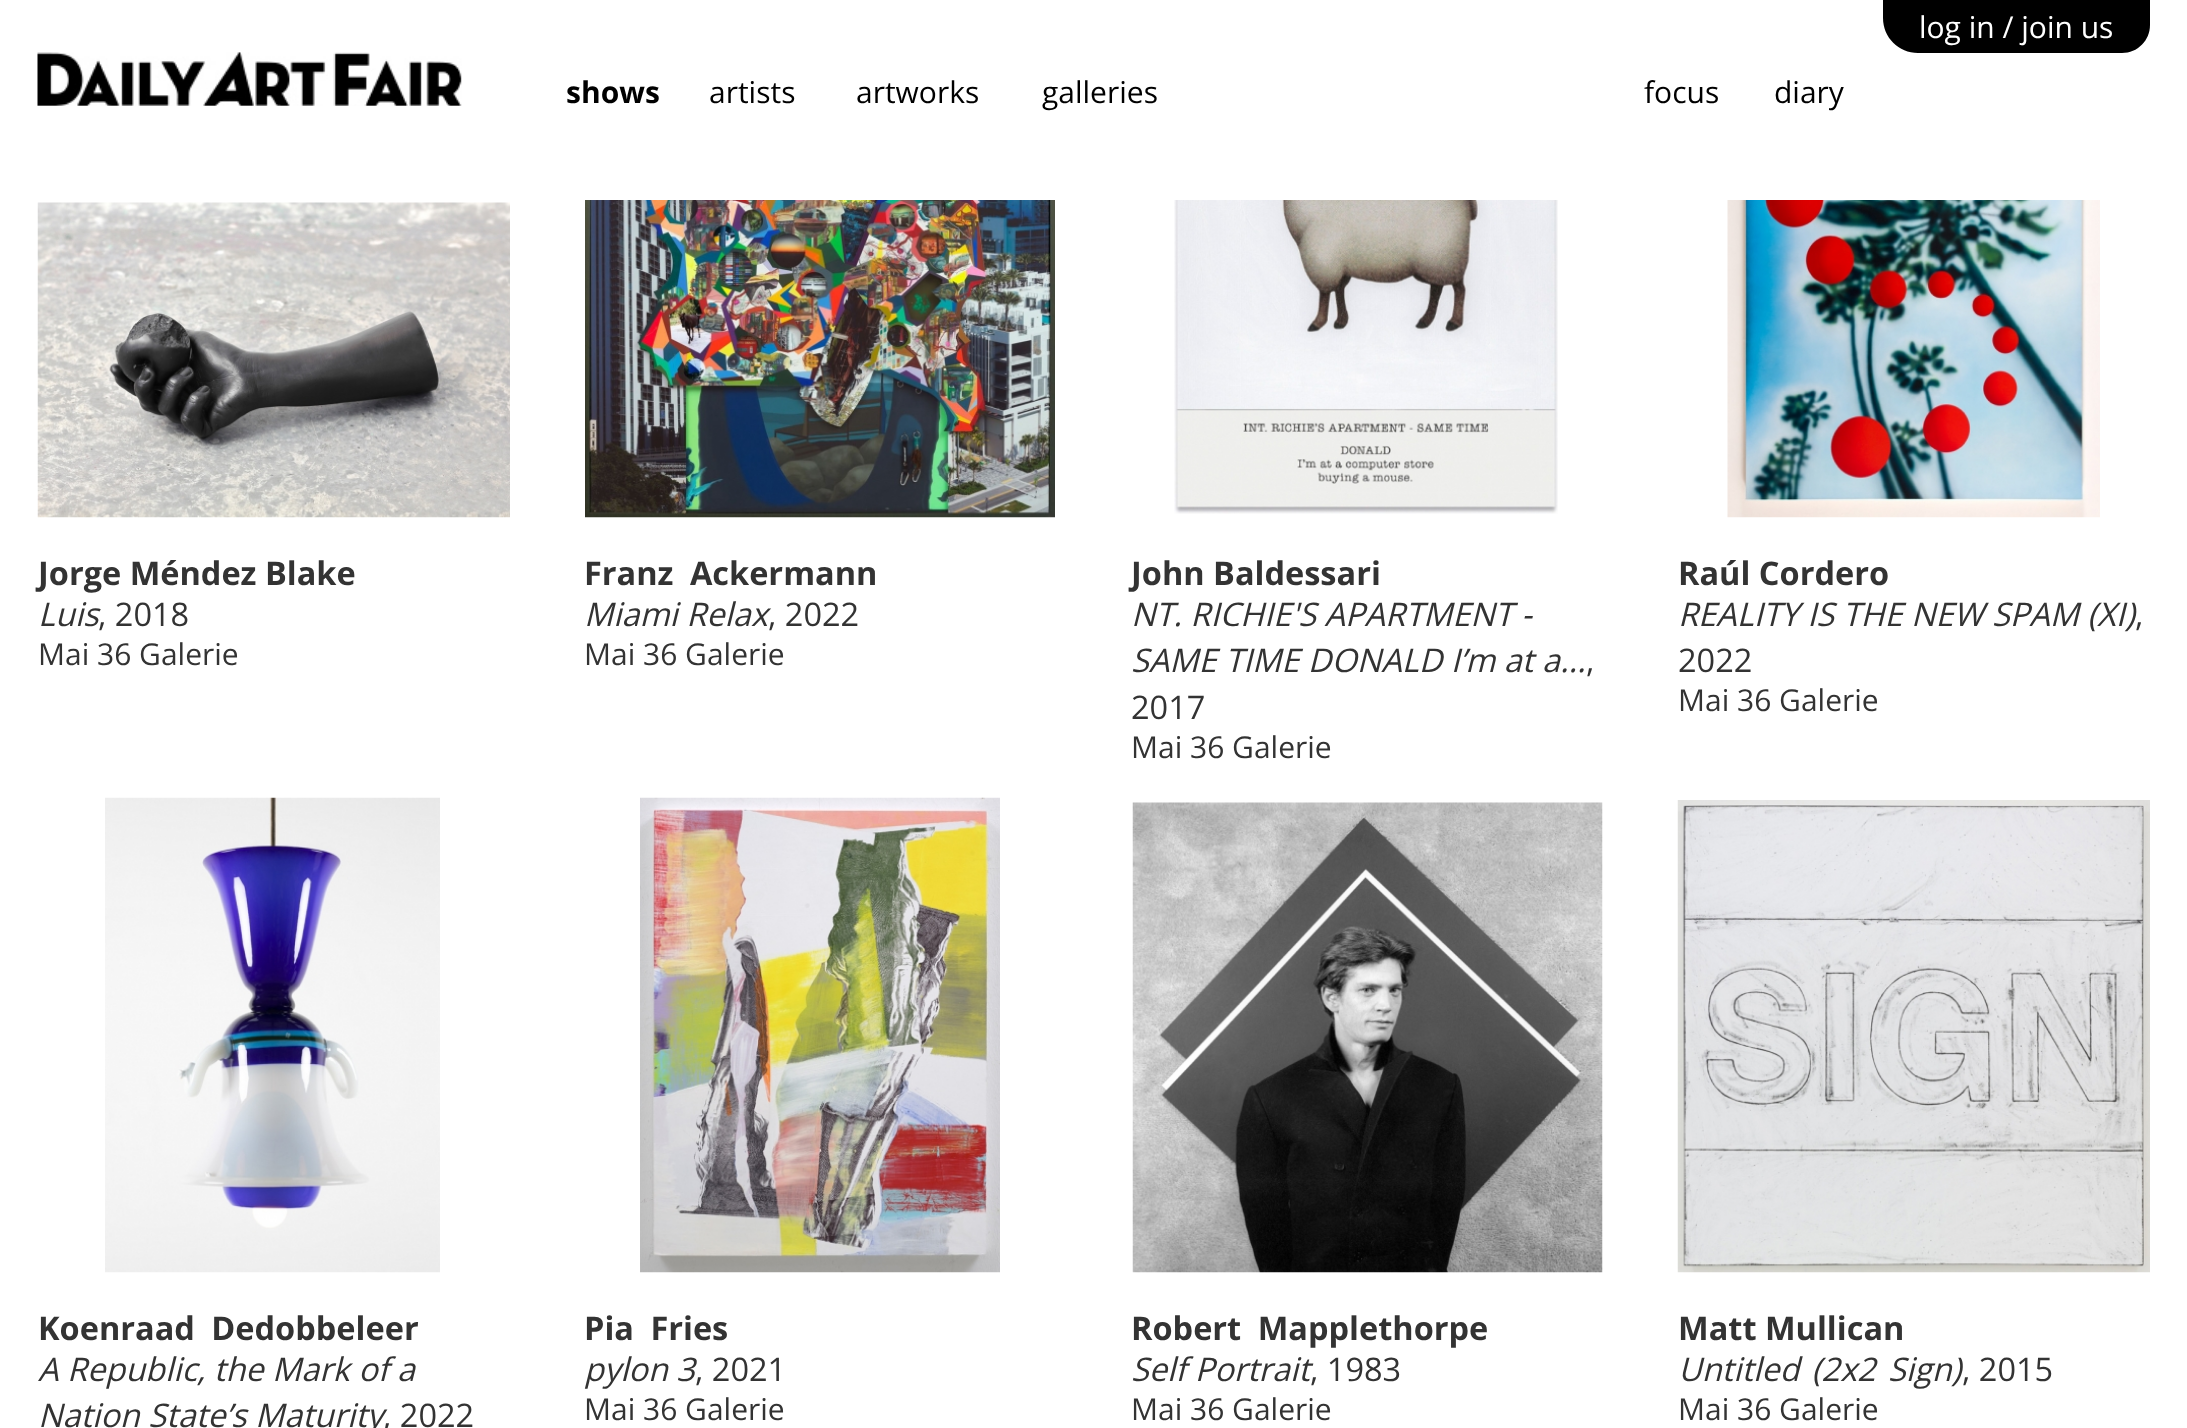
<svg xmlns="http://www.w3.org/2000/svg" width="2187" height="1428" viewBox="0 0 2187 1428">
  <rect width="100%" height="100%" fill="rgb(255,255,255)"/>
  <path d="M1883 0H2150V25C2150 40.5 2137.5 53 2122 53H1918C1898.5 53 1883 37.5 1883 18Z" fill="rgb(0,0,0)"/>
  <text x="1919" y="38" font-family="Open Sans" font-size="30" fill="rgb(255,255,255)">log in / join us</text>
  <image x="37" y="52" width="425" height="54" href="pic1.png"/>
  <text x="566" y="103" font-family="Open Sans" font-size="30" font-weight="bold" fill="rgb(0,0,0)">shows</text>
  <g font-family="Open Sans" font-size="30" fill="rgb(0,0,0)">
    <text x="709" y="103">artists</text>
    <text x="856" y="103">artworks</text>
    <text x="1042" y="103">galleries</text>
    <text x="1644" y="103">focus</text>
    <text x="1774" y="103">diary</text>
  </g>
  <image x="37" y="202" width="473" height="316" href="pic2.png"/>
  <text x="38" y="585" font-family="Open Sans" font-size="32.5" font-weight="bold" fill="rgb(51,51,51)">Jorge Méndez Blake</text>
  <text x="38" y="626" font-family="Open Sans" font-size="32.5" font-style="italic" fill="rgb(51,51,51)">Luis</text>
  <text x="98" y="626" font-family="Open Sans" font-size="32.5" fill="rgb(51,51,51)">, 2018</text>
  <text x="38" y="665" font-family="Open Sans" font-size="30" fill="rgb(51,51,51)">Mai 36 Galerie</text>
  <image x="585" y="200" width="470" height="318" href="pic3.png"/>
  <text x="584" y="585" word-spacing="8" font-family="Open Sans" font-size="32.5" font-weight="bold" fill="rgb(51,51,51)">Franz Ackermann</text>
  <text x="584" y="626" font-family="Open Sans" font-size="32.5" font-style="italic" fill="rgb(51,51,51)">Miami Relax</text>
  <text x="768" y="626" font-family="Open Sans" font-size="32.5" fill="rgb(51,51,51)">, 2022</text>
  <text x="584" y="665" font-family="Open Sans" font-size="30" fill="rgb(51,51,51)">Mai 36 Galerie</text>
  <image x="1174" y="200" width="384" height="314" href="pic4.png"/>
  <text x="1131" y="585" font-family="Open Sans" font-size="32.5" font-weight="bold" fill="rgb(51,51,51)">John Baldessari</text>
  <g font-family="Open Sans" font-size="32.5" font-style="italic" fill="rgb(51,51,51)">
    <text>
      <tspan x="1131" y="626">NT. RICHIE'S APARTMENT -</tspan>
      <tspan x="1131" y="672">SAME TIME DONALD I’m at a...</tspan>
    </text>
  </g>
  <g font-family="Open Sans" font-size="32.5" fill="rgb(51,51,51)">
    <text x="1586" y="672">,</text>
    <text x="1131" y="719">2017</text>
  </g>
  <text x="1131" y="758" font-family="Open Sans" font-size="30" fill="rgb(51,51,51)">Mai 36 Galerie</text>
  <image x="1727" y="200" width="373" height="318" href="pic5.png"/>
  <text x="1678" y="585" font-family="Open Sans" font-size="32.5" font-weight="bold" fill="rgb(51,51,51)">Raúl Cordero</text>
  <text x="1678" y="626" font-family="Open Sans" font-size="32.5" font-style="italic" fill="rgb(51,51,51)">REALITY IS THE NEW SPAM (XI)</text>
  <g font-family="Open Sans" font-size="32.5" fill="rgb(51,51,51)">
    <text x="2135" y="626">,</text>
    <text x="1678" y="672">2022</text>
  </g>
  <text x="1678" y="711" font-family="Open Sans" font-size="30" fill="rgb(51,51,51)">Mai 36 Galerie</text>
  <image x="105" y="797" width="335" height="476" href="pic6.png"/>
  <text x="38" y="1340" word-spacing="8" font-family="Open Sans" font-size="32.5" font-weight="bold" fill="rgb(51,51,51)">Koenraad Dedobbeleer</text>
  <g font-family="Open Sans" font-size="32.5" font-style="italic" fill="rgb(51,51,51)">
    <text>
      <tspan x="38" y="1381">A Republic, the Mark of a</tspan>
      <tspan x="38" y="1427">Nation State’s Maturity</tspan>
    </text>
  </g>
  <text x="383" y="1427" font-family="Open Sans" font-size="32.5" fill="rgb(51,51,51)">, 2022</text>
  <image x="640" y="797" width="360" height="476" href="pic7.png"/>
  <text x="584" y="1340" word-spacing="8" font-family="Open Sans" font-size="32.5" font-weight="bold" fill="rgb(51,51,51)">Pia Fries</text>
  <text x="584" y="1381" font-family="Open Sans" font-size="32.5" font-style="italic" fill="rgb(51,51,51)">pylon 3</text>
  <text x="695" y="1381" font-family="Open Sans" font-size="32.5" fill="rgb(51,51,51)">, 2021</text>
  <text x="584" y="1420" font-family="Open Sans" font-size="30" fill="rgb(51,51,51)">Mai 36 Galerie</text>
  <image x="1132" y="802" width="471" height="471" href="pic8.png"/>
  <text x="1131" y="1340" word-spacing="8" font-family="Open Sans" font-size="32.5" font-weight="bold" fill="rgb(51,51,51)">Robert Mapplethorpe</text>
  <text x="1131" y="1381" font-family="Open Sans" font-size="32.5" font-style="italic" fill="rgb(51,51,51)">Self Portrait</text>
  <text x="1310" y="1381" font-family="Open Sans" font-size="32.5" fill="rgb(51,51,51)">, 1983</text>
  <text x="1131" y="1420" font-family="Open Sans" font-size="30" fill="rgb(51,51,51)">Mai 36 Galerie</text>
  <image x="1677" y="800" width="473" height="473" href="pic9.png"/>
  <text x="1678" y="1340" font-family="Open Sans" font-size="32.5" font-weight="bold" fill="rgb(51,51,51)">Matt Mullican</text>
  <text x="1678" y="1381" word-spacing="4" font-family="Open Sans" font-size="32.5" font-style="italic" fill="rgb(51,51,51)">Untitled (2x2 Sign)</text>
  <text x="1962" y="1381" font-family="Open Sans" font-size="32.5" fill="rgb(51,51,51)">, 2015</text>
  <text x="1678" y="1420" font-family="Open Sans" font-size="30" fill="rgb(51,51,51)">Mai 36 Galerie</text>
</svg>
